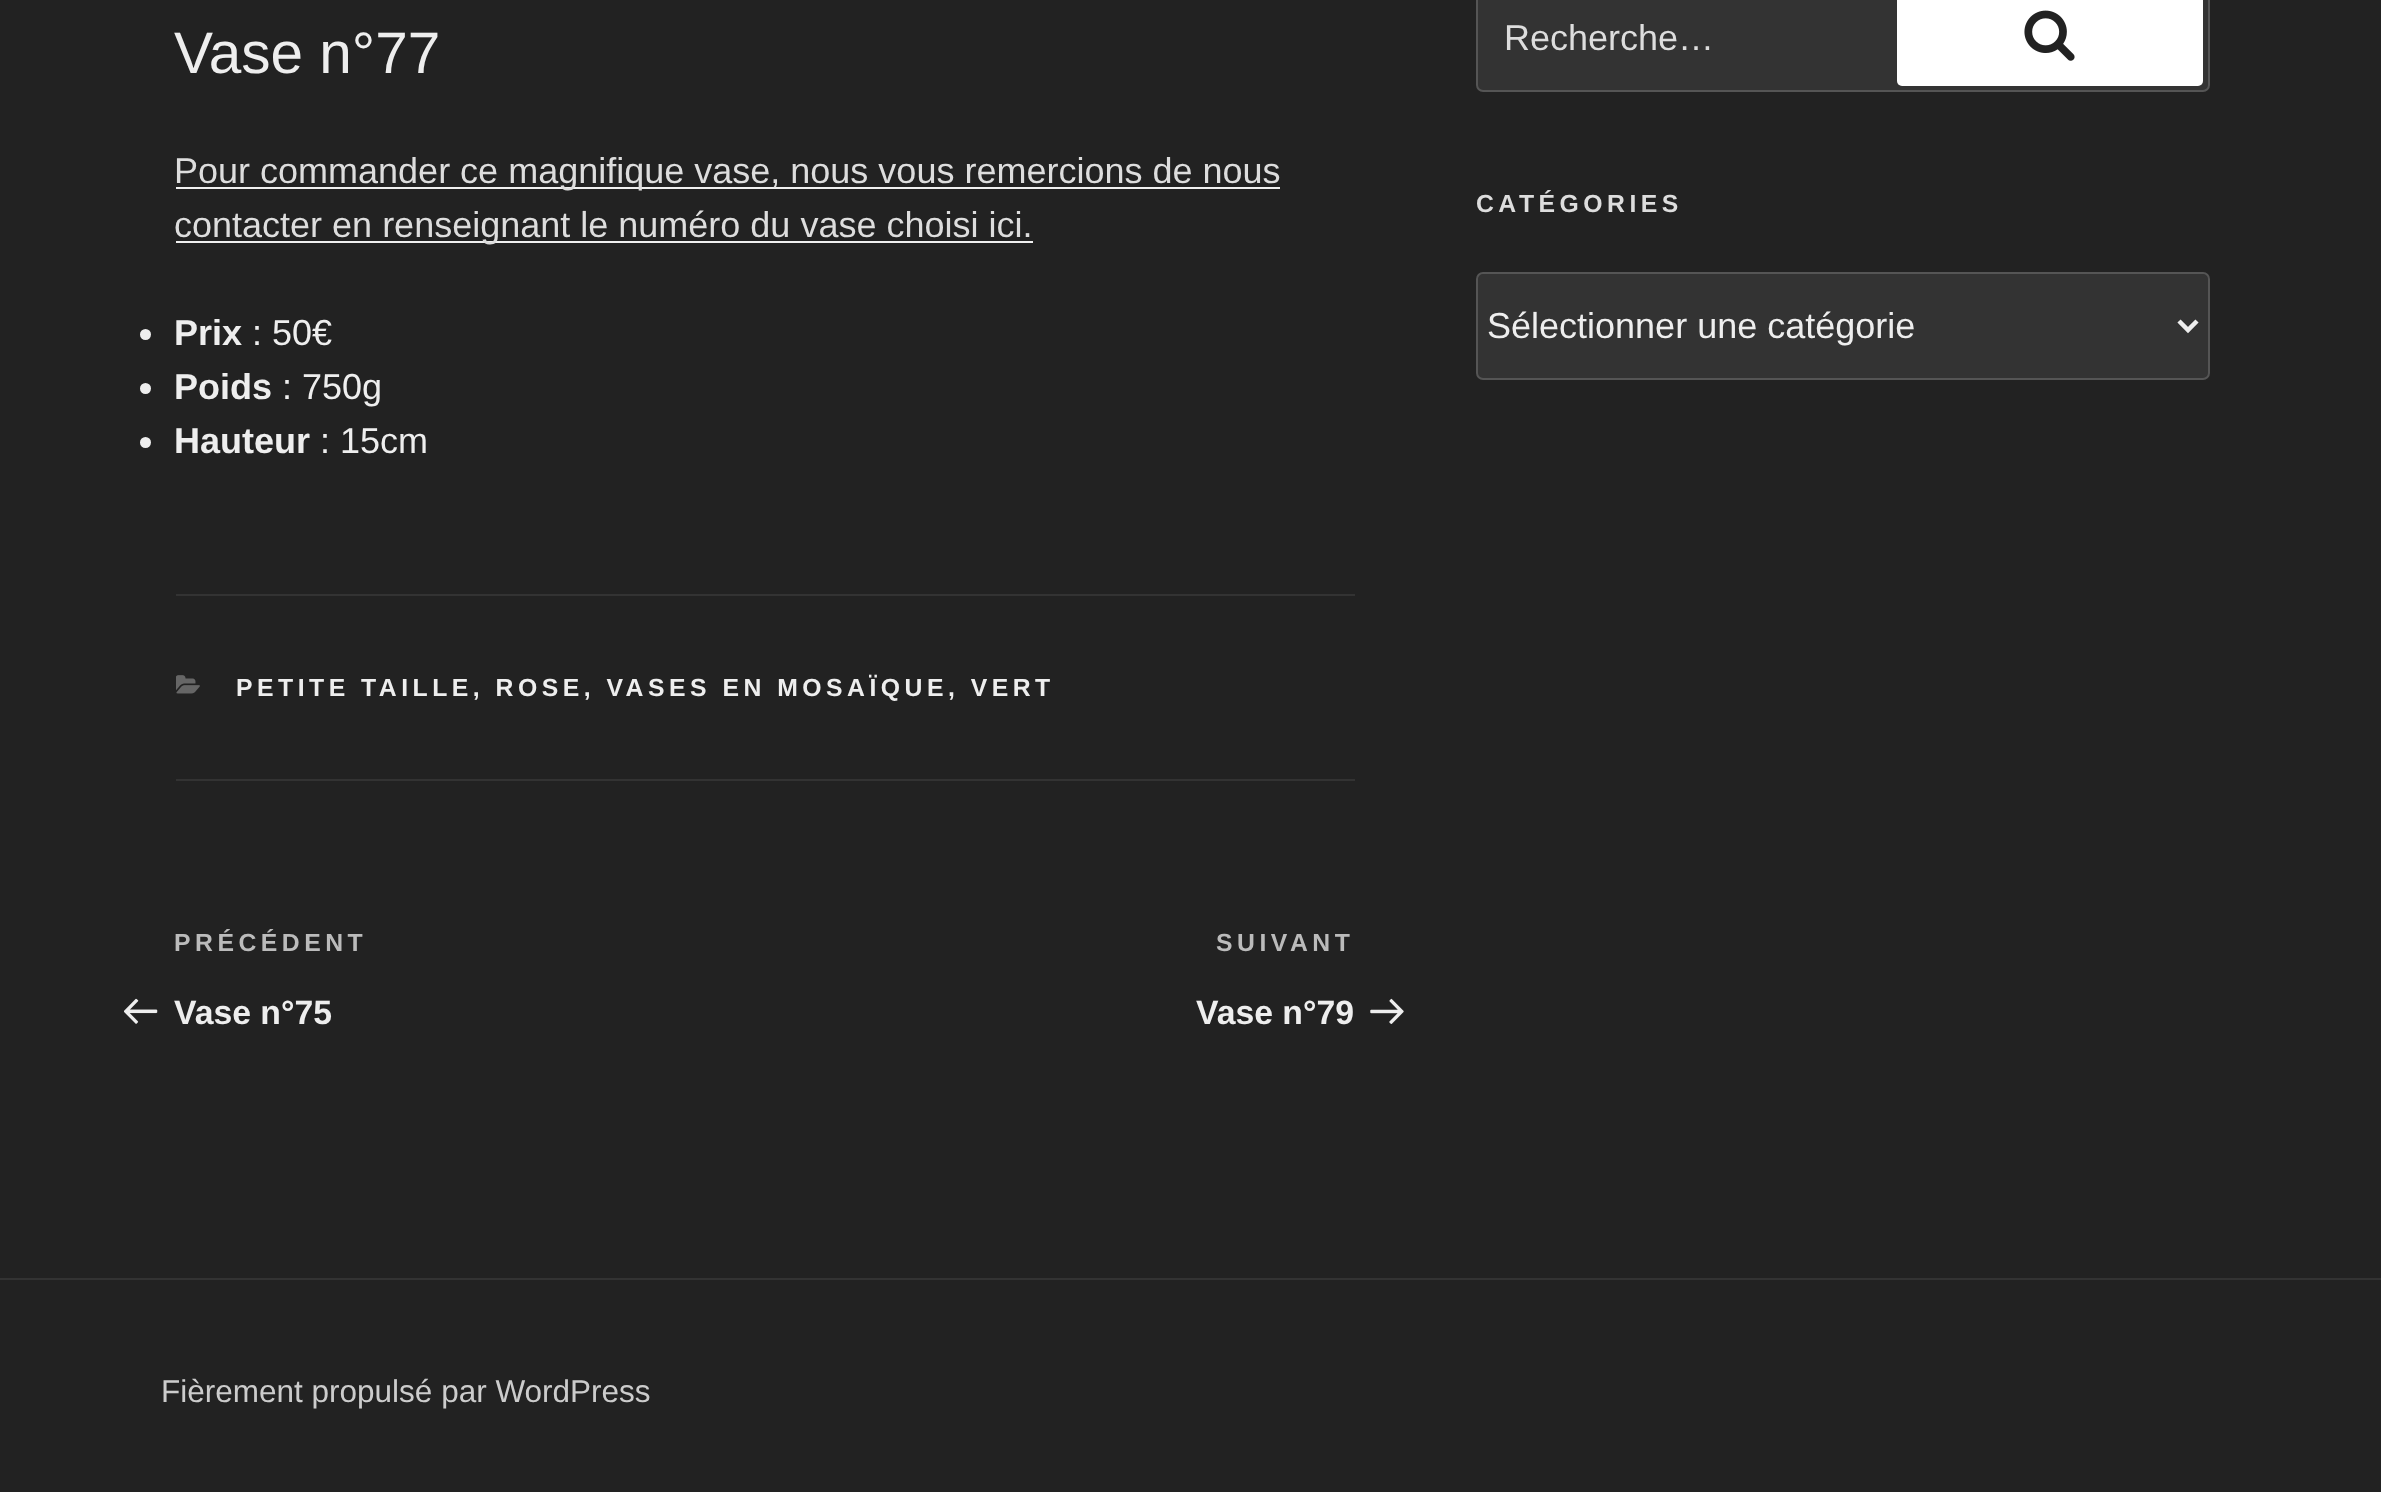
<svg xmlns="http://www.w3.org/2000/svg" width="2381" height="1492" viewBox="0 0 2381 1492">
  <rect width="100%" height="100%" fill="rgb(34,34,34)"/>
  <text x="174" y="73" font-family="Liberation Sans" font-size="58.5" fill="rgb(238,238,238)">Vase n°77</text>
  <rect x="176" y="187" width="1104" height="2" fill="rgb(240,240,240)"/>
  <text x="174" y="183" font-family="Liberation Sans" font-size="36" fill="rgb(221,221,221)">Pour commander ce magnifique vase, nous vous remercions de nous</text>
  <rect x="176" y="241" width="857" height="2" fill="rgb(240,240,240)"/>
  <text x="174" y="237" font-family="Liberation Sans" font-size="36" fill="rgb(221,221,221)">contacter en renseignant le numéro du vase choisi ici.</text>
  <circle cx="145.5" cy="334.5" r="5.5" fill="rgb(238,238,238)"/>
  <text x="174" y="345" font-family="Liberation Sans" font-size="36" font-weight="bold" fill="rgb(238,238,238)">Prix</text>
  <text x="252" y="345" font-family="Liberation Sans" font-size="36" fill="rgb(238,238,238)">: 50€</text>
  <circle cx="145.5" cy="388.5" r="5.5" fill="rgb(238,238,238)"/>
  <text x="174" y="399" font-family="Liberation Sans" font-size="36" font-weight="bold" fill="rgb(238,238,238)">Poids</text>
  <text x="282" y="399" font-family="Liberation Sans" font-size="36" fill="rgb(238,238,238)">: 750g</text>
  <circle cx="145.5" cy="442.5" r="5.5" fill="rgb(238,238,238)"/>
  <text x="174" y="453" font-family="Liberation Sans" font-size="36" font-weight="bold" fill="rgb(238,238,238)">Hauteur</text>
  <text x="320" y="453" font-family="Liberation Sans" font-size="36" fill="rgb(238,238,238)">: 15cm</text>
  <rect x="176" y="594" width="1179" height="2" fill="rgb(51,51,51)"/>
  <rect x="176" y="779" width="1179" height="2" fill="rgb(51,51,51)"/>
  <image x="176" y="675" width="24" height="19" href="pic1.png"/>
  <text x="236" y="696" font-family="Liberation Sans" font-size="24.75" font-weight="bold" letter-spacing="4.5" fill="rgb(238,238,238)">PETITE TAILLE, ROSE, VASES EN MOSAÏQUE, VERT</text>
  <text x="174" y="951" font-family="Liberation Sans" font-size="24.75" font-weight="bold" letter-spacing="4.5" fill="rgb(187,187,187)">PRÉCÉDENT</text>
  <image x="124" y="998" width="34" height="26" href="pic2.png"/>
  <text x="174" y="1024" font-family="Liberation Sans" font-size="33.75" font-weight="bold" fill="rgb(238,238,238)">Vase n°75</text>
  <text x="1216" y="951" font-family="Liberation Sans" font-size="24.75" font-weight="bold" letter-spacing="4.5" fill="rgb(187,187,187)">SUIVANT</text>
  <text x="1196" y="1024" font-family="Liberation Sans" font-size="33.75" font-weight="bold" fill="rgb(238,238,238)">Vase n°79</text>
  <image x="1370" y="998" width="34" height="26" href="pic3.png"/>
  <rect x="1477" y="-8" width="732" height="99" rx="6" fill="rgb(51,51,51)" stroke="rgb(85,85,85)" stroke-width="2"/>
  <text x="1504" y="50" font-family="Liberation Sans" font-size="36" fill="rgb(221,221,221)">Recherche…</text>
  <rect x="1897" y="-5" width="306" height="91" rx="5" fill="rgb(255,255,255)"/>
  <image x="2024" y="10" width="51" height="51" href="pic4.png"/>
  <text x="1476" y="212" font-family="Liberation Sans" font-size="24.75" font-weight="bold" letter-spacing="4.5" fill="rgb(221,221,221)">CATÉGORIES</text>
  <rect x="1477" y="273" width="732" height="106" rx="6" fill="rgb(51,51,51)" stroke="rgb(85,85,85)" stroke-width="2"/>
  <path d="M2179 321L2188 330L2197 321" fill="none" stroke="rgb(238,238,238)" stroke-width="4.5"/>
  <text x="1487" y="338" font-family="Liberation Sans" font-size="36" fill="rgb(238,238,238)">Sélectionner une catégorie</text>
  <rect x="0" y="1278" width="2381" height="2" fill="rgb(51,51,51)"/>
  <text x="161" y="1402" font-family="Liberation Sans" font-size="31.5" fill="rgb(204,204,204)">Fièrement propulsé par WordPress</text>
</svg>
